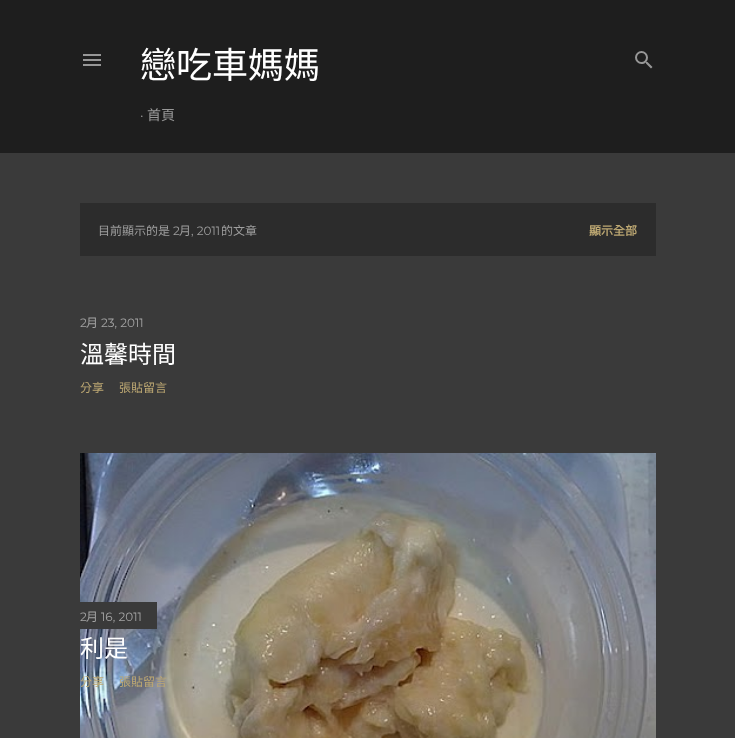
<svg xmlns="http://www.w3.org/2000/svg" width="735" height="738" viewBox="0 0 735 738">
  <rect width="100%" height="100%" fill="rgb(58,58,58)"/>
  <rect x="0" y="0" width="735" height="153" fill="rgb(30,30,30)"/>
  <image x="83" y="54" width="18" height="12" href="pic1.png"/>
  <text x="140" y="78" font-family="Noto Sans CJK TC" font-size="36" fill="rgb(255,255,255)">戀吃車媽媽</text>
  <text x="140" y="120" font-family="Montserrat" font-size="14" fill="rgb(152,152,152)">·</text>
  <text x="147" y="120" font-family="Noto Sans CJK TC" font-size="14" fill="rgb(152,152,152)">首頁</text>
  <image x="635" y="51" width="18" height="18" href="pic2.png"/>
  <rect x="80" y="203" width="576" height="53" fill="rgb(44,44,44)"/>
  <text x="98" y="235" font-family="Noto Sans CJK TC" font-size="12" fill="rgb(158,158,158)">目前顯示的是</text>
  <text x="173" y="235" font-family="Montserrat" font-size="12" fill="rgb(158,158,158)">2</text>
  <text x="179" y="235" font-family="Noto Sans CJK TC" font-size="12" fill="rgb(158,158,158)">月</text>
  <text x="191" y="235" font-family="Montserrat" font-size="12" fill="rgb(158,158,158)">, 2011</text>
  <text x="221" y="235" font-family="Noto Sans CJK TC" font-size="12" fill="rgb(158,158,158)">的文章</text>
  <text x="589" y="235" font-family="Noto Sans CJK TC" font-size="12" font-weight="bold" fill="rgb(188,167,114)">顯示全部</text>
  <text x="80" y="327" font-family="Montserrat" font-size="12" fill="rgb(164,164,164)">2</text>
  <text x="86" y="327" font-family="Noto Sans CJK TC" font-size="12" fill="rgb(164,164,164)">月</text>
  <text x="101" y="327" font-family="Montserrat" font-size="12" fill="rgb(164,164,164)">23, 2011</text>
  <text x="80" y="363" font-family="Noto Sans CJK TC" font-size="24" fill="rgb(255,255,255)">溫馨時間</text>
  <g font-family="Noto Sans CJK TC" font-size="12" fill="rgb(188,167,114)">
    <text x="80" y="392">分享</text>
    <text x="119" y="392">張貼留言</text>
  </g>
  <image x="80" y="453" width="576" height="285" href="pic3.png"/>
  <rect x="80" y="602" width="77" height="27" fill="rgb(58,58,58)"/>
  <text x="80" y="621" font-family="Montserrat" font-size="12" fill="rgb(164,164,164)">2</text>
  <text x="86" y="621" font-family="Noto Sans CJK TC" font-size="12" fill="rgb(164,164,164)">月</text>
  <text x="101" y="621" font-family="Montserrat" font-size="12" fill="rgb(164,164,164)">16, 2011</text>
  <text x="80" y="657" font-family="Noto Sans CJK TC" font-size="24" fill="rgb(255,255,255)">利是</text>
  <g font-family="Noto Sans CJK TC" font-size="12" fill="rgb(188,167,114)">
    <text x="80" y="686">分享</text>
    <text x="119" y="686">張貼留言</text>
  </g>
</svg>
